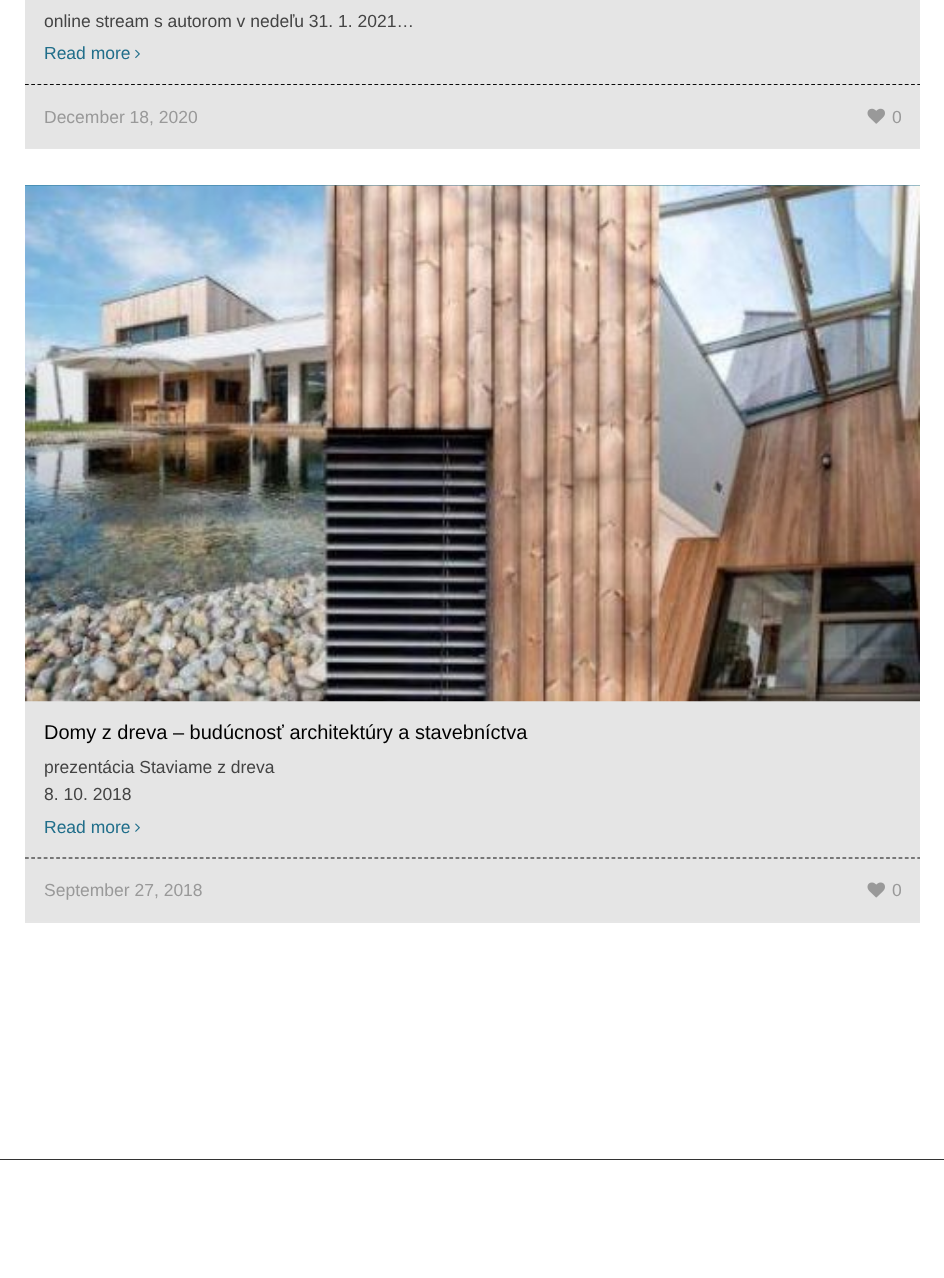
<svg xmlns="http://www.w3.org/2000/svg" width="944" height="1278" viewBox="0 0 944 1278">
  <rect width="100%" height="100%" fill="rgb(255,255,255)"/>
  <rect x="25" y="148" width="895" height="1" fill="rgb(230,230,230)"/>
  <rect x="25" y="0" width="895" height="148" fill="rgb(229,229,229)"/>
  <text x="44" y="27" font-family="Liberation Sans" font-size="17.5" fill="rgb(68,68,68)">online stream s autorom v nedeľu 31. 1. 2021…</text>
  <text x="44" y="59" font-family="Liberation Sans" font-size="17.5" fill="rgb(32,110,138)">Read more</text>
  <image x="135" y="49" width="5" height="10" href="pic1.png"/>
  <path d="M25 84.5H920" fill="none" stroke="rgb(10,10,10)" stroke-width="1.2" stroke-dasharray="3.75 2.49"/>
  <text x="44" y="123" font-family="Liberation Sans" font-size="17.5" fill="rgb(153,153,153)">December 18, 2020</text>
  <image x="867" y="108" width="18" height="16" href="pic2.png"/>
  <text x="892" y="123" font-family="Liberation Sans" font-size="17.5" fill="rgb(153,153,153)">0</text>
  <rect x="25" y="921" width="895" height="2" fill="rgb(230,230,230)"/>
  <rect x="25" y="701" width="895" height="220" fill="rgb(229,229,229)"/>
  <rect x="25" y="185" width="895" height="1" fill="rgb(32,110,138)"/>
  <image x="25" y="185" width="895" height="517" href="pic3.png"/>
  <text x="44" y="739" font-family="Liberation Sans" font-size="20" fill="rgb(0,0,0)">Domy z dreva – budúcnosť architektúry a stavebníctva</text>
  <g font-family="Liberation Sans" font-size="17.5" fill="rgb(68,68,68)">
    <text>
      <tspan x="44" y="773">prezentácia Staviame z dreva</tspan>
      <tspan x="44" y="800">8. 10. 2018</tspan>
    </text>
  </g>
  <text x="44" y="833" font-family="Liberation Sans" font-size="17.5" fill="rgb(32,110,138)">Read more</text>
  <image x="135" y="823" width="5" height="9" href="pic4.png"/>
  <path d="M25 858H920" fill="none" stroke="rgb(10,10,10)" stroke-width="1.2" stroke-dasharray="3.75 2.49"/>
  <text x="44" y="896" font-family="Liberation Sans" font-size="17.5" fill="rgb(153,153,153)">September 27, 2018</text>
  <image x="867" y="882" width="18" height="16" href="pic5.png"/>
  <text x="892" y="896" font-family="Liberation Sans" font-size="17.5" fill="rgb(153,153,153)">0</text>
  <rect x="0" y="1159" width="944" height="1" fill="rgb(51,51,51)"/>
</svg>
